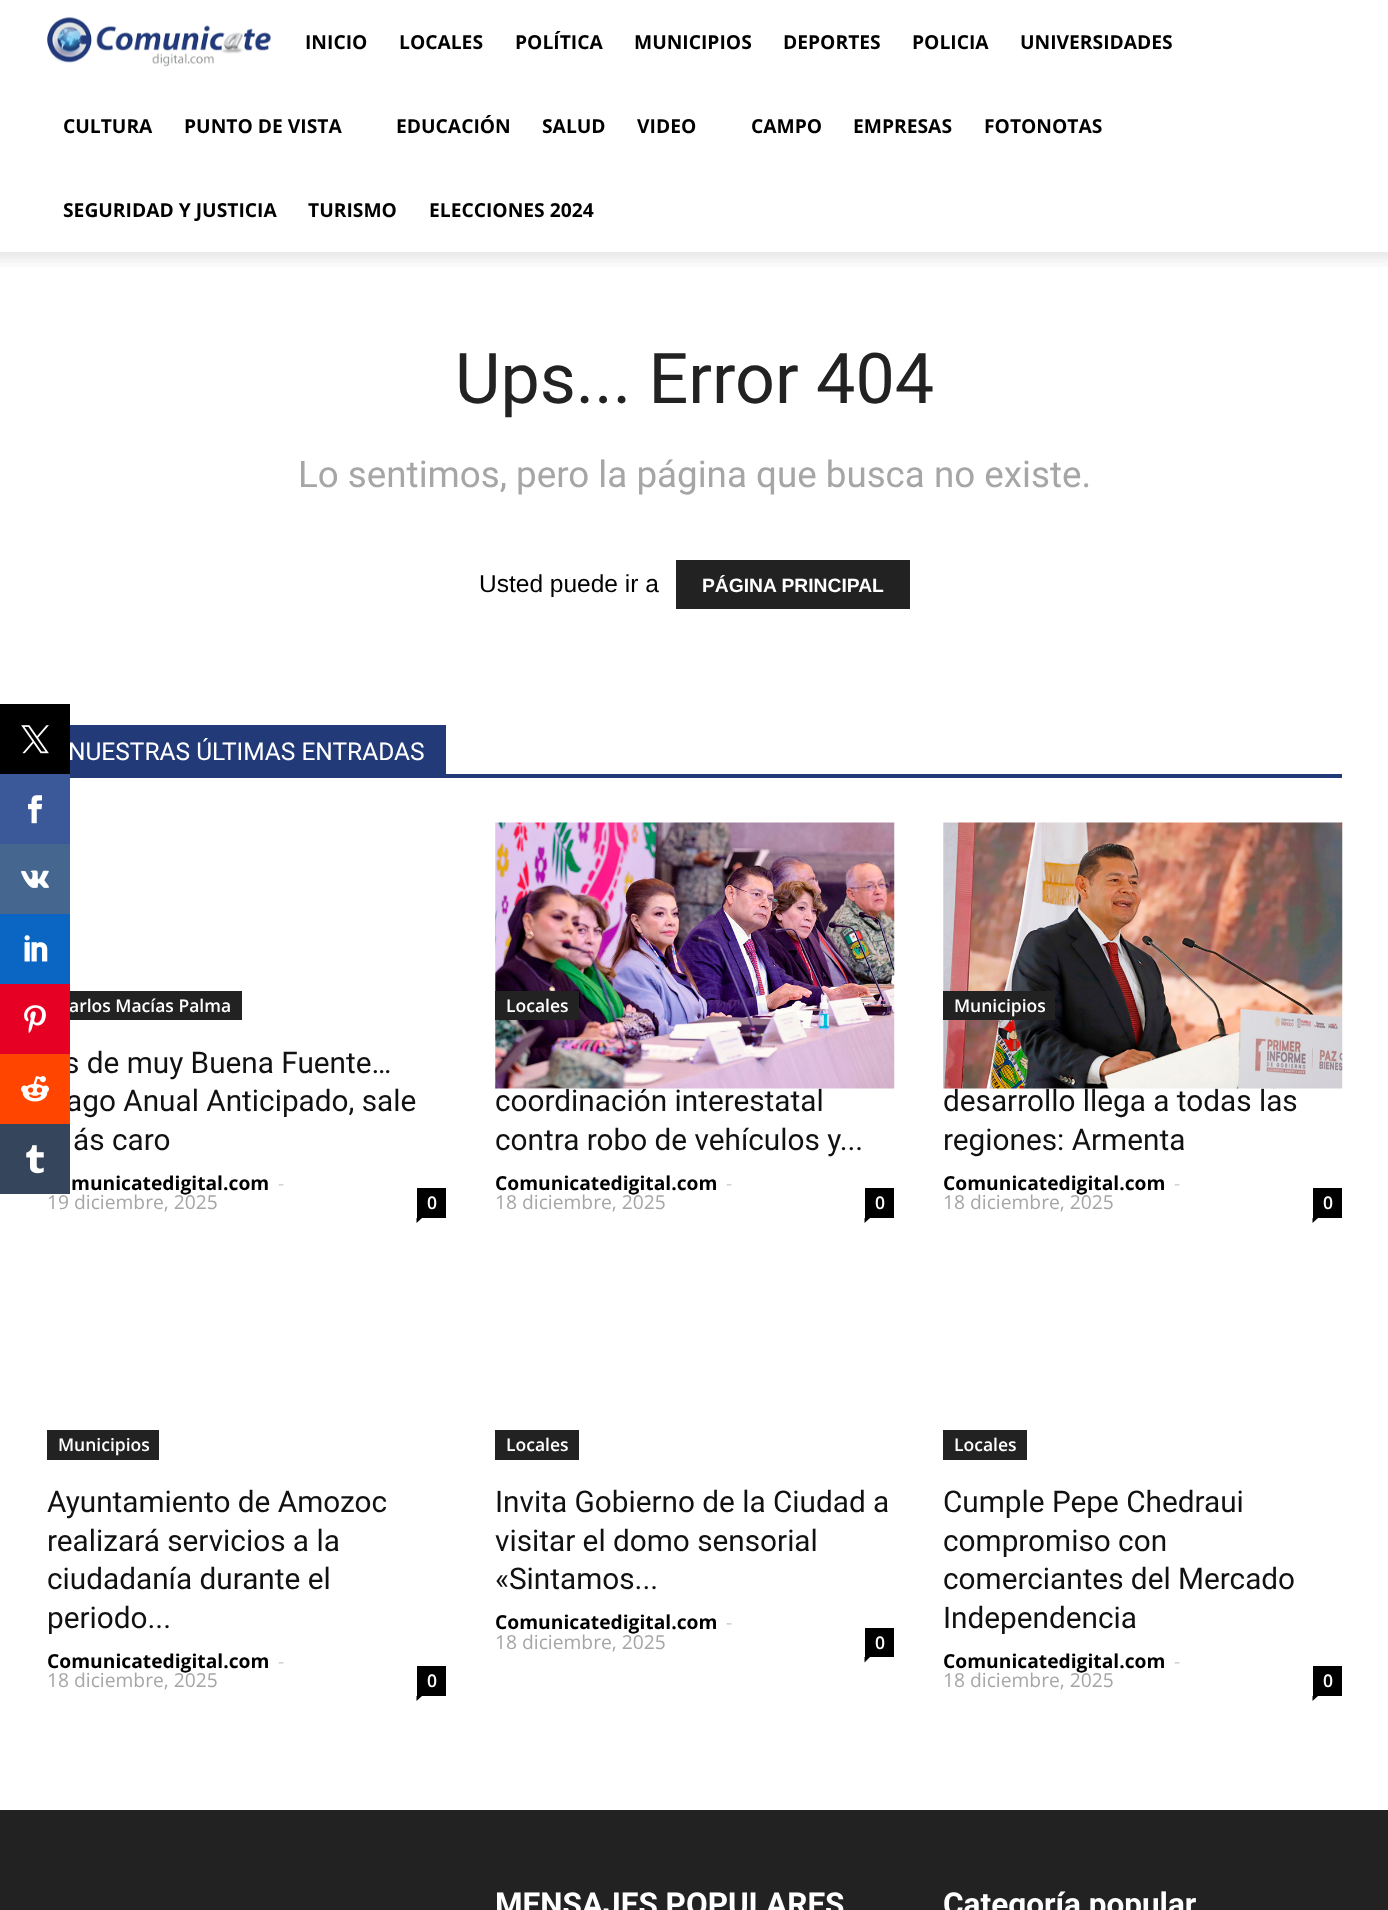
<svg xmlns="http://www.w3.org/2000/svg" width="1388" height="1910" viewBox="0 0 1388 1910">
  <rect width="100%" height="100%" fill="rgb(255,255,255)"/>
  <rect x="0" y="704" width="70" height="70" fill="rgb(0,0,0)"/>
  <image x="21" y="725" width="28" height="29" href="pic1.png"/>
  <rect x="0" y="774" width="70" height="70" fill="rgb(59,89,152)"/>
  <image x="28" y="795" width="15" height="29" href="pic2.png"/>
  <rect x="0" y="844" width="70" height="70" fill="rgb(69,102,142)"/>
  <image x="21" y="870" width="28" height="18" href="pic3.png"/>
  <rect x="0" y="914" width="70" height="70" fill="rgb(10,102,194)"/>
  <image x="24" y="935" width="24" height="27" href="pic4.png"/>
  <rect x="70" y="991" width="172" height="29" fill="rgb(34,34,34)"/>
  <text x="69" y="1012" font-family="Open Sans" font-size="17.5" font-weight="600" fill="rgb(255,255,255)">arlos Macías Palma</text>
  <text x="64" y="1073" font-family="Roboto" font-size="29.75" fill="rgb(17,17,17)">s de muy Buena Fuente…</text>
  <rect x="0" y="984" width="70" height="70" fill="rgb(230,0,35)"/>
  <image x="24" y="1005" width="22" height="29" href="pic5.png"/>
  <text x="66" y="1111" font-family="Roboto" font-size="29.75" fill="rgb(17,17,17)">ago Anual Anticipado, sale</text>
  <rect x="0" y="1054" width="70" height="70" fill="rgb(255,69,0)"/>
  <image x="21" y="1076" width="28" height="26" href="pic6.png"/>
  <rect x="0" y="1124" width="70" height="70" fill="rgb(53,70,92)"/>
  <image x="26" y="1145" width="18" height="29" href="pic7.png"/>
  <image x="47" y="17" width="225" height="50" href="pic8.png"/>
  <g font-family="Open Sans" font-size="19.25" font-weight="bold" fill="rgb(0,0,0)">
    <text x="305" y="49">INICIO</text>
    <text x="399" y="49">LOCALES</text>
    <text x="515" y="49">POLÍTICA</text>
    <text x="634" y="49">MUNICIPIOS</text>
    <text x="783" y="49">DEPORTES</text>
    <text x="912" y="49">POLICIA</text>
    <text x="1020" y="49">UNIVERSIDADES</text>
    <text x="63" y="133">CULTURA</text>
    <text x="184" y="133">PUNTO DE VISTA</text>
    <text x="396" y="133">EDUCACIÓN</text>
    <text x="542" y="133">SALUD</text>
    <text x="637" y="133">VIDEO</text>
    <text x="751" y="133">CAMPO</text>
    <text x="853" y="133">EMPRESAS</text>
    <text x="984" y="133">FOTONOTAS</text>
    <text x="63" y="217">SEGURIDAD Y JUSTICIA</text>
    <text x="308" y="217">TURISMO</text>
    <text x="429" y="217">ELECCIONES 2024</text>
  </g>
  <image x="0" y="252" width="1388" height="15" href="pic9.png"/>
  <text x="455" y="403" font-family="Roboto" font-size="70" fill="rgb(34,34,34)">Ups... Error 404</text>
  <text x="298" y="487" font-family="Roboto" font-size="36.75" fill="rgb(166,166,166)">Lo sentimos, pero la página que busca no existe.</text>
  <text x="479" y="592" font-family="Liberation Sans" font-size="24.5" fill="rgb(0,0,0)">Usted puede ir a</text>
  <rect x="676" y="560" width="234" height="49" fill="rgb(34,34,34)"/>
  <text x="702" y="592" font-family="Liberation Sans" font-size="19.25" font-weight="bold" fill="rgb(255,255,255)">PÁGINA PRINCIPAL</text>
  <rect x="70" y="774" width="1272" height="4" fill="rgb(35,58,121)"/>
  <rect x="70" y="725" width="376" height="49" fill="rgb(35,58,121)"/>
  <text x="68" y="760" font-family="Roboto" font-size="24.5" fill="rgb(255,255,255)">NUESTRAS ÚLTIMAS ENTRADAS</text>
  <text x="73" y="1150" font-family="Roboto" font-size="29.75" fill="rgb(17,17,17)">ás caro</text>
  <text x="71" y="1190" font-family="Open Sans" font-size="19.25" font-weight="bold" fill="rgb(0,0,0)">municatedigital.com</text>
  <text x="278" y="1190" font-family="Open Sans" font-size="19.25" fill="rgb(204,204,204)">-</text>
  <text x="47" y="1209" font-family="Open Sans" font-size="19.25" fill="rgb(166,166,166)">19 diciembre, 2025</text>
  <rect x="417" y="1188" width="29" height="30" fill="rgb(0,0,0)"/>
  <text x="427" y="1209" font-family="Open Sans" font-size="17.5" font-weight="600" fill="rgb(255,255,255)">0</text>
  <path d="M416.5 1218H422L416.5 1223Z" fill="rgb(0,0,0)"/>
  <text x="495" y="1111" font-family="Roboto" font-size="29.75" fill="rgb(17,17,17)">coordinación interestatal</text>
  <image x="495" y="822" width="400" height="267" href="pic10.png"/>
  <rect x="495" y="991" width="84" height="29" fill="rgb(34,34,34)"/>
  <text x="506" y="1012" font-family="Open Sans" font-size="17.5" font-weight="600" fill="rgb(255,255,255)">Locales</text>
  <text x="495" y="1150" font-family="Roboto" font-size="29.75" fill="rgb(17,17,17)">contra robo de vehículos y...</text>
  <text x="495" y="1190" font-family="Open Sans" font-size="19.25" font-weight="bold" fill="rgb(0,0,0)">Comunicatedigital.com</text>
  <text x="726" y="1190" font-family="Open Sans" font-size="19.25" fill="rgb(204,204,204)">-</text>
  <text x="495" y="1209" font-family="Open Sans" font-size="19.25" fill="rgb(166,166,166)">18 diciembre, 2025</text>
  <rect x="865" y="1188" width="29" height="30" fill="rgb(0,0,0)"/>
  <text x="875" y="1209" font-family="Open Sans" font-size="17.5" font-weight="600" fill="rgb(255,255,255)">0</text>
  <path d="M864.5 1218H870L864.5 1223Z" fill="rgb(0,0,0)"/>
  <text x="943" y="1111" font-family="Roboto" font-size="29.75" fill="rgb(17,17,17)">desarrollo llega a todas las</text>
  <image x="943" y="822" width="400" height="267" href="pic11.png"/>
  <rect x="943" y="991" width="112" height="29" fill="rgb(34,34,34)"/>
  <text x="954" y="1012" font-family="Open Sans" font-size="17.5" font-weight="600" fill="rgb(255,255,255)">Municipios</text>
  <text x="943" y="1150" font-family="Roboto" font-size="29.75" fill="rgb(17,17,17)">regiones: Armenta</text>
  <text x="943" y="1190" font-family="Open Sans" font-size="19.25" font-weight="bold" fill="rgb(0,0,0)">Comunicatedigital.com</text>
  <text x="1174" y="1190" font-family="Open Sans" font-size="19.25" fill="rgb(204,204,204)">-</text>
  <text x="943" y="1209" font-family="Open Sans" font-size="19.25" fill="rgb(166,166,166)">18 diciembre, 2025</text>
  <rect x="1313" y="1188" width="29" height="30" fill="rgb(0,0,0)"/>
  <text x="1323" y="1209" font-family="Open Sans" font-size="17.5" font-weight="600" fill="rgb(255,255,255)">0</text>
  <path d="M1312.5 1218H1318L1312.5 1223Z" fill="rgb(0,0,0)"/>
  <rect x="47" y="1430" width="112" height="30" fill="rgb(34,34,34)"/>
  <text x="58" y="1451" font-family="Open Sans" font-size="17.5" font-weight="600" fill="rgb(255,255,255)">Municipios</text>
  <g font-family="Roboto" font-size="29.75" fill="rgb(17,17,17)">
    <text>
      <tspan x="47" y="1512">Ayuntamiento de Amozoc</tspan>
      <tspan x="47" y="1551">realizará servicios a la</tspan>
      <tspan x="47" y="1589">ciudadanía durante el</tspan>
      <tspan x="47" y="1628">periodo...</tspan>
    </text>
  </g>
  <text x="47" y="1668" font-family="Open Sans" font-size="19.25" font-weight="bold" fill="rgb(0,0,0)">Comunicatedigital.com</text>
  <text x="278" y="1668" font-family="Open Sans" font-size="19.25" fill="rgb(204,204,204)">-</text>
  <text x="47" y="1687" font-family="Open Sans" font-size="19.25" fill="rgb(166,166,166)">18 diciembre, 2025</text>
  <rect x="417" y="1666" width="29" height="30" fill="rgb(0,0,0)"/>
  <text x="427" y="1687" font-family="Open Sans" font-size="17.5" font-weight="600" fill="rgb(255,255,255)">0</text>
  <path d="M416.5 1696H422L416.5 1701Z" fill="rgb(0,0,0)"/>
  <rect x="495" y="1430" width="84" height="30" fill="rgb(34,34,34)"/>
  <text x="506" y="1451" font-family="Open Sans" font-size="17.5" font-weight="600" fill="rgb(255,255,255)">Locales</text>
  <g font-family="Roboto" font-size="29.75" fill="rgb(17,17,17)">
    <text>
      <tspan x="495" y="1512">Invita Gobierno de la Ciudad a</tspan>
      <tspan x="495" y="1551">visitar el domo sensorial</tspan>
      <tspan x="495" y="1589">«Sintamos...</tspan>
    </text>
  </g>
  <text x="495" y="1629" font-family="Open Sans" font-size="19.25" font-weight="bold" fill="rgb(0,0,0)">Comunicatedigital.com</text>
  <text x="726" y="1629" font-family="Open Sans" font-size="19.25" fill="rgb(204,204,204)">-</text>
  <text x="495" y="1649" font-family="Open Sans" font-size="19.25" fill="rgb(166,166,166)">18 diciembre, 2025</text>
  <rect x="865" y="1628" width="29" height="29" fill="rgb(0,0,0)"/>
  <text x="875" y="1649" font-family="Open Sans" font-size="17.5" font-weight="600" fill="rgb(255,255,255)">0</text>
  <path d="M864.5 1657H870L864.5 1662.5Z" fill="rgb(0,0,0)"/>
  <rect x="943" y="1430" width="84" height="30" fill="rgb(34,34,34)"/>
  <text x="954" y="1451" font-family="Open Sans" font-size="17.5" font-weight="600" fill="rgb(255,255,255)">Locales</text>
  <g font-family="Roboto" font-size="29.75" fill="rgb(17,17,17)">
    <text>
      <tspan x="943" y="1512">Cumple Pepe Chedraui</tspan>
      <tspan x="943" y="1551">compromiso con</tspan>
      <tspan x="943" y="1589">comerciantes del Mercado</tspan>
      <tspan x="943" y="1628">Independencia</tspan>
    </text>
  </g>
  <text x="943" y="1668" font-family="Open Sans" font-size="19.25" font-weight="bold" fill="rgb(0,0,0)">Comunicatedigital.com</text>
  <text x="1174" y="1668" font-family="Open Sans" font-size="19.25" fill="rgb(204,204,204)">-</text>
  <text x="943" y="1687" font-family="Open Sans" font-size="19.25" fill="rgb(166,166,166)">18 diciembre, 2025</text>
  <rect x="1313" y="1666" width="29" height="30" fill="rgb(0,0,0)"/>
  <text x="1323" y="1687" font-family="Open Sans" font-size="17.5" font-weight="600" fill="rgb(255,255,255)">0</text>
  <path d="M1312.5 1696H1318L1312.5 1701Z" fill="rgb(0,0,0)"/>
  <rect x="0" y="1810" width="1388" height="100" fill="rgb(34,34,34)"/>
  <g font-family="Roboto" font-size="31.5" font-weight="bold" fill="rgb(255,255,255)">
    <text x="495" y="1915">MENSAJES POPULARES</text>
    <text x="943" y="1915">Categoría popular</text>
  </g>
</svg>
